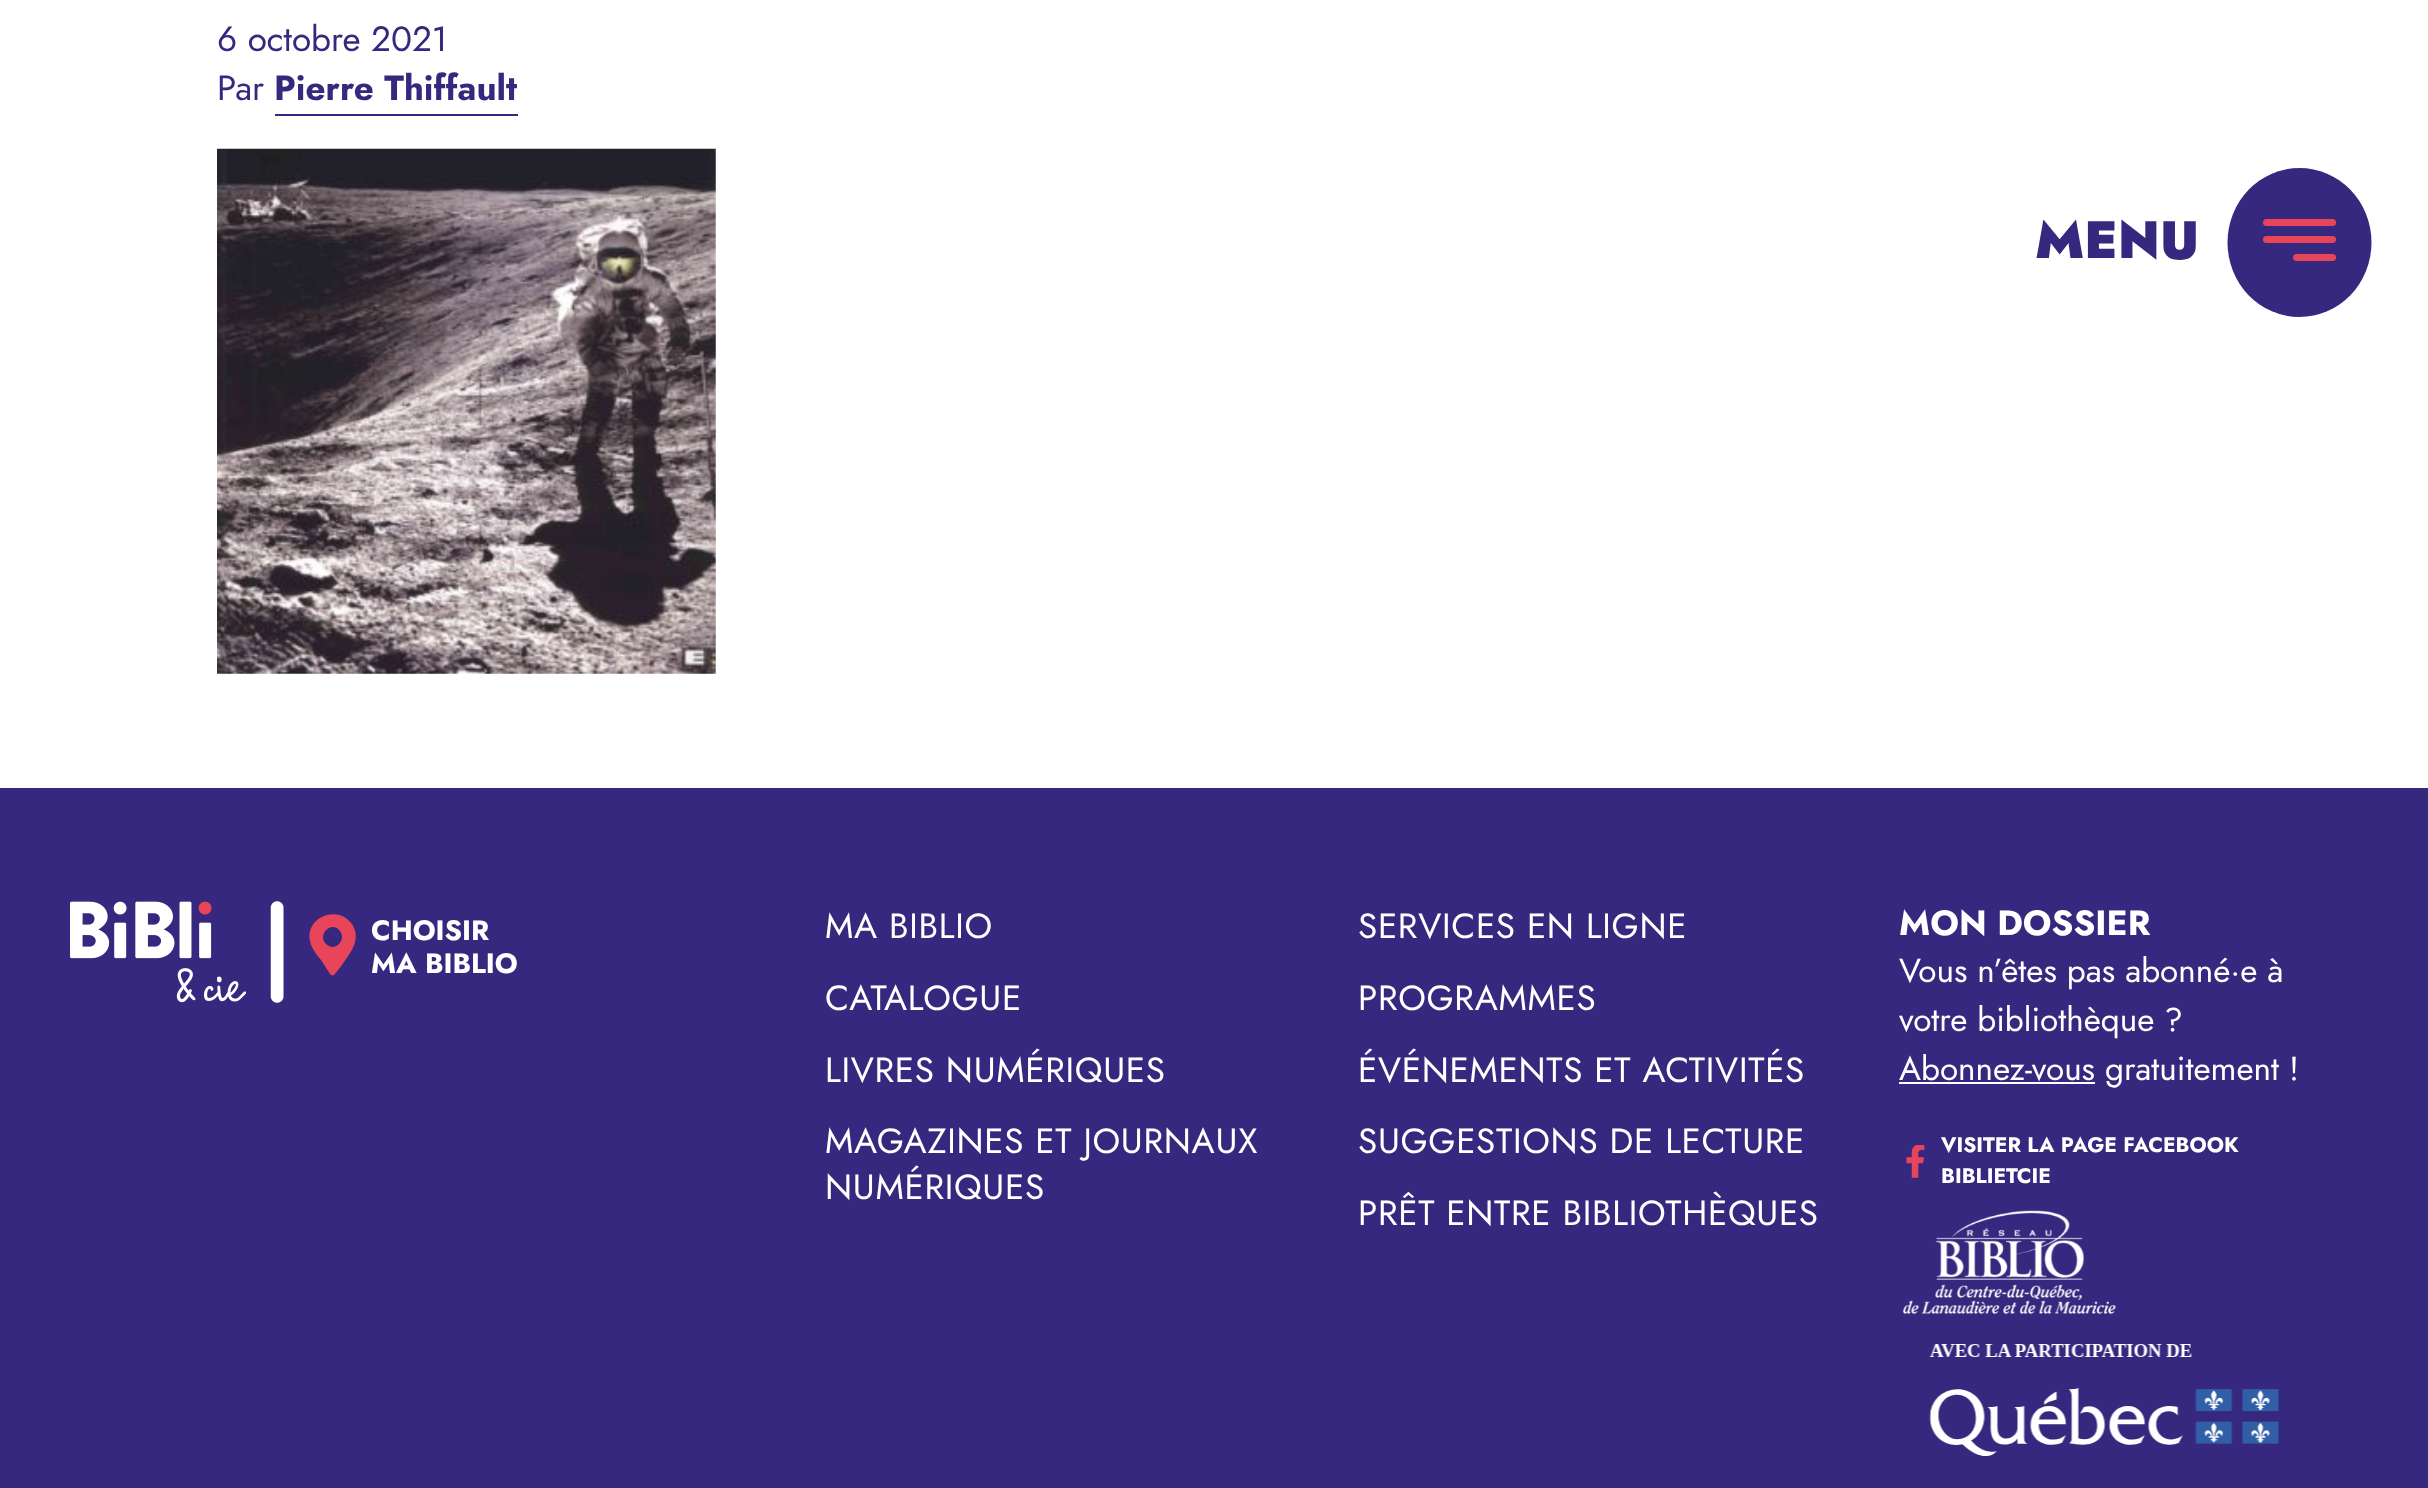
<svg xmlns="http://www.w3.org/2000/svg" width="2428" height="1488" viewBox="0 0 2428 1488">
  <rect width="100%" height="100%" fill="rgb(255,255,255)"/>
  <g font-family="Jost" font-size="35" fill="rgb(54,40,126)">
    <text>
      <tspan x="217" y="51">6 octobre 2021</tspan>
      <tspan x="217" y="100">Par</tspan>
    </text>
  </g>
  <text x="274" y="100" font-family="Jost" font-size="35" font-weight="bold" fill="rgb(54,40,126)">Pierre Thiffault</text>
  <rect x="275" y="114" width="243" height="2" fill="rgb(54,40,126)"/>
  <image x="217" y="148" width="499" height="526" href="pic1.png"/>
  <text x="2035" y="258" font-family="Jost" font-size="52.5" font-weight="900" fill="rgb(54,40,126)">MENU</text>
  <ellipse cx="2299.5" cy="242.5" rx="72" ry="74.5" fill="rgb(54,40,126)"/>
  <rect x="2263" y="219" width="73" height="7" rx="3.5" fill="rgb(233,69,90)"/>
  <rect x="2263" y="236" width="73" height="7" rx="3.5" fill="rgb(233,69,90)"/>
  <rect x="2293" y="254" width="43" height="7" rx="3.5" fill="rgb(233,69,90)"/>
  <rect x="0" y="788" width="2428" height="700" fill="rgb(54,40,126)"/>
  <image x="70" y="901" width="214" height="102" href="pic2.png"/>
  <path d="M330 974L321 960C317 955 311 948 310 941C305 917 338 904 352 924C362 940 350 953 342 965L334 975C333 976 331 975 330 974ZM326 944C335 953 348 939 339 930C331 921 317 935 326 944Z" fill="rgb(233,69,90)"/>
  <g font-family="Jost" font-size="28" font-weight="bold" fill="rgb(255,255,255)">
    <text>
      <tspan x="371" y="940">CHOISIR</tspan>
      <tspan x="371" y="973">MA BIBLIO</tspan>
    </text>
  </g>
  <g font-family="Jost" font-size="35" letter-spacing="0.7" fill="rgb(255,255,255)">
    <text x="825" y="938">MA BIBLIO</text>
    <text x="1358" y="938">SERVICES EN LIGNE</text>
    <text x="825" y="1010">CATALOGUE</text>
    <text x="1358" y="1010">PROGRAMMES</text>
    <text x="825" y="1082">LIVRES NUMÉRIQUES</text>
    <text x="1358" y="1082">ÉVÉNEMENTS ET ACTIVITÉS</text>
    <text>
      <tspan x="825" y="1153">MAGAZINES ET JOURNAUX</tspan>
      <tspan x="825" y="1199">NUMÉRIQUES</tspan>
    </text>
    <text x="1358" y="1153">SUGGESTIONS DE LECTURE</text>
    <text x="1358" y="1225">PRÊT ENTRE BIBLIOTHÈQUES</text>
  </g>
  <text x="1899" y="935" font-family="Jost" font-size="35" font-weight="bold" fill="rgb(255,255,255)">MON DOSSIER</text>
  <g font-family="Jost" font-size="33.25" fill="rgb(255,255,255)">
    <text>
      <tspan x="1899" y="982">Vous n’êtes pas abonné·e à</tspan>
      <tspan x="1899" y="1031">votre bibliothèque ?</tspan>
    </text>
  </g>
  <rect x="1899" y="1082" width="196" height="2" fill="rgb(255,255,255)"/>
  <text x="1899" y="1080" font-family="Jost" font-size="33.25" fill="rgb(255,255,255)">Abonnez-vous gratuitement !</text>
  <image x="1906" y="1145" width="19" height="33" href="pic3.png"/>
  <g font-family="Jost" font-size="21" font-weight="bold" fill="rgb(255,255,255)">
    <text>
      <tspan x="1941" y="1152">VISITER LA PAGE FACEBOOK</tspan>
      <tspan x="1941" y="1183">BIBLIETCIE</tspan>
    </text>
  </g>
  <image x="1902" y="1210" width="214" height="105" href="pic4.png"/>
  <image x="1929" y="1344" width="350" height="112" href="pic5.png"/>
</svg>
